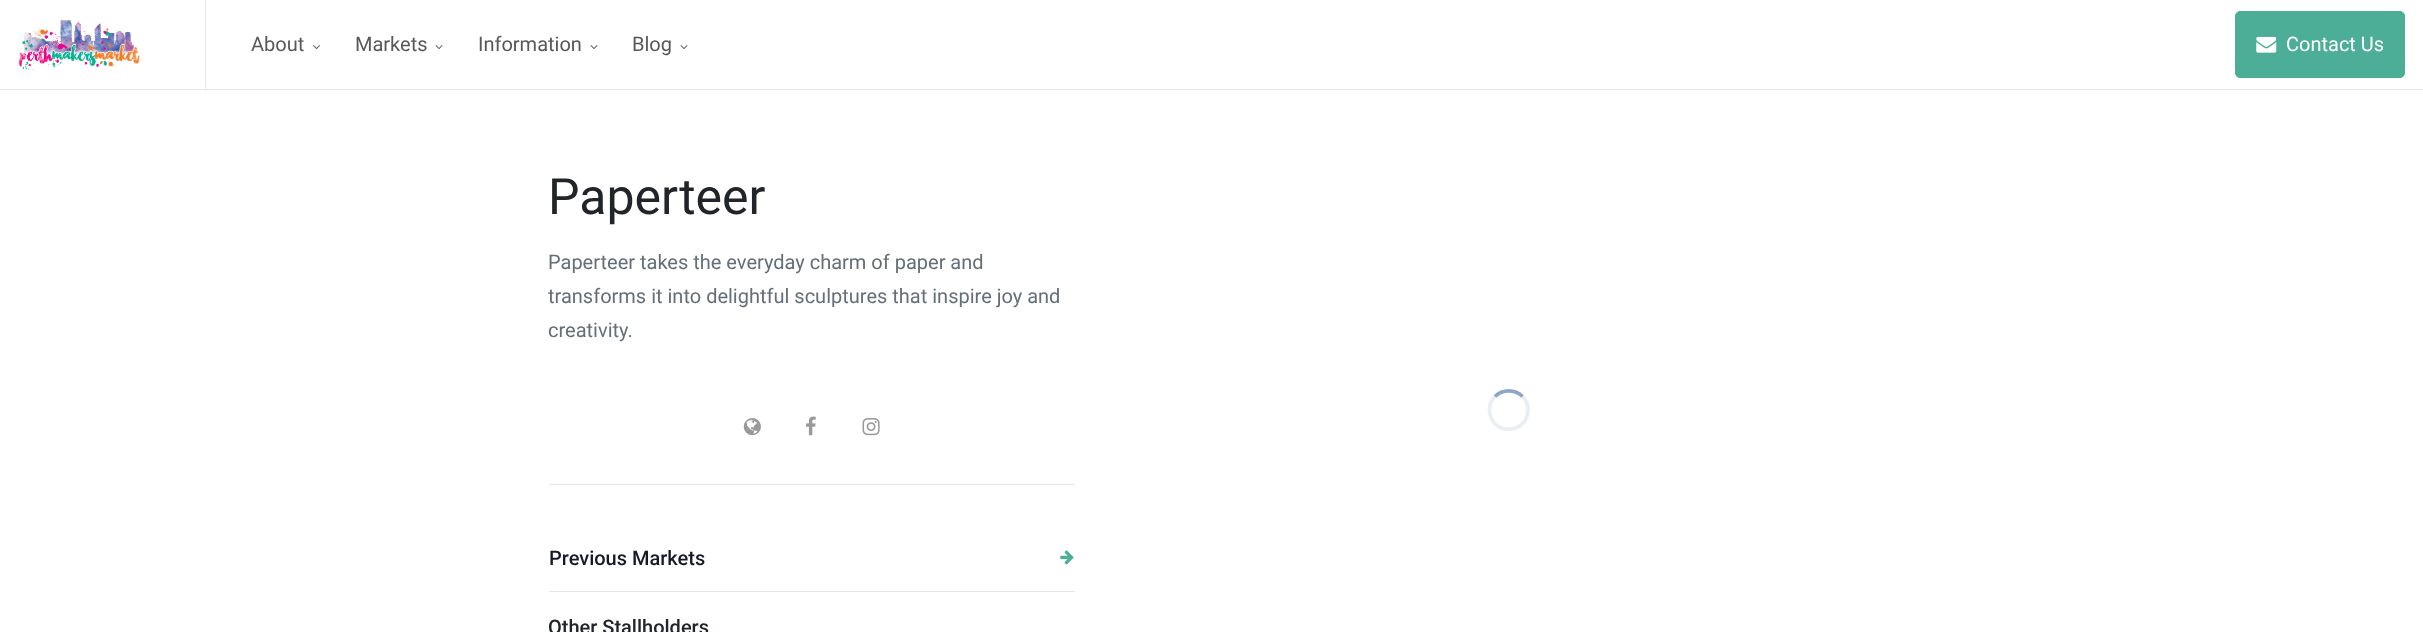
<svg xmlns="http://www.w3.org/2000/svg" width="2423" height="632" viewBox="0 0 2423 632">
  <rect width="100%" height="100%" fill="rgb(255,255,255)"/>
  <rect x="0" y="89" width="2423" height="1" fill="rgb(227,230,240)"/>
  <rect x="205" y="0" width="1" height="89" fill="rgb(227,230,240)"/>
  <image x="19" y="20" width="121" height="50" href="pic1.png"/>
  <text x="251" y="51" font-family="Roboto" font-size="20" fill="rgb(90,87,87)">About</text>
  <image x="313" y="45" width="7" height="5" href="pic2.png"/>
  <text x="355" y="51" font-family="Roboto" font-size="20" fill="rgb(90,87,87)">Markets</text>
  <image x="435" y="45" width="8" height="4" href="pic3.png"/>
  <text x="478" y="51" font-family="Roboto" font-size="20" fill="rgb(90,87,87)">Information</text>
  <image x="590" y="45" width="8" height="4" href="pic3.png"/>
  <text x="632" y="51" font-family="Roboto" font-size="20" fill="rgb(90,87,87)">Blog</text>
  <image x="680" y="45" width="8" height="4" href="pic3.png"/>
  <rect x="2235.5" y="11.5" width="169" height="66" rx="4.5" fill="rgb(76,174,151)" stroke="rgb(76,174,151)"/>
  <image x="2256" y="36" width="21" height="17" href="pic4.png"/>
  <text x="2286" y="51" font-family="Roboto" font-size="20" fill="rgb(255,255,255)">Contact Us</text>
  <text x="548" y="214" font-family="Roboto" font-size="50" fill="rgb(33,37,41)">Paperteer</text>
  <g font-family="Roboto" font-size="20" fill="rgb(100,111,121)">
    <text>
      <tspan x="548" y="269">Paperteer takes the everyday charm of paper and</tspan>
      <tspan x="548" y="303">transforms it into delightful sculptures that inspire joy and</tspan>
      <tspan x="548" y="337">creativity.</tspan>
    </text>
  </g>
  <image x="743" y="418" width="18" height="18" href="pic5.png"/>
  <image x="806" y="416" width="10" height="20" href="pic6.png"/>
  <image x="862" y="418" width="18" height="18" href="pic7.png"/>
  <rect x="549" y="484" width="526" height="1" fill="rgb(227,230,240)"/>
  <rect x="549" y="591" width="526" height="1" fill="rgb(227,230,240)"/>
  <text x="549" y="565" font-family="Roboto" font-size="20" font-weight="500" fill="rgb(21,27,38)">Previous Markets</text>
  <image x="1060" y="550" width="14" height="15" href="pic8.png"/>
  <text x="548" y="634" font-family="Roboto" font-size="20" font-weight="500" fill="rgb(33,37,41)">Other Stallholders</text>
  <path d="M1495 396.5C1502.5 389 1515 389 1522.5 396.5" fill="none" stroke="rgb(142,166,197)" stroke-width="3.8"/>
  <path d="M1522.5 396.5C1526 400 1528 405 1528 410C1528 433 1494.5 436.5 1490 414C1488.5 407.5 1490.5 401 1495 396.5" fill="none" stroke="rgba(114,144,182,0.15)" stroke-width="3.8"/>
</svg>
